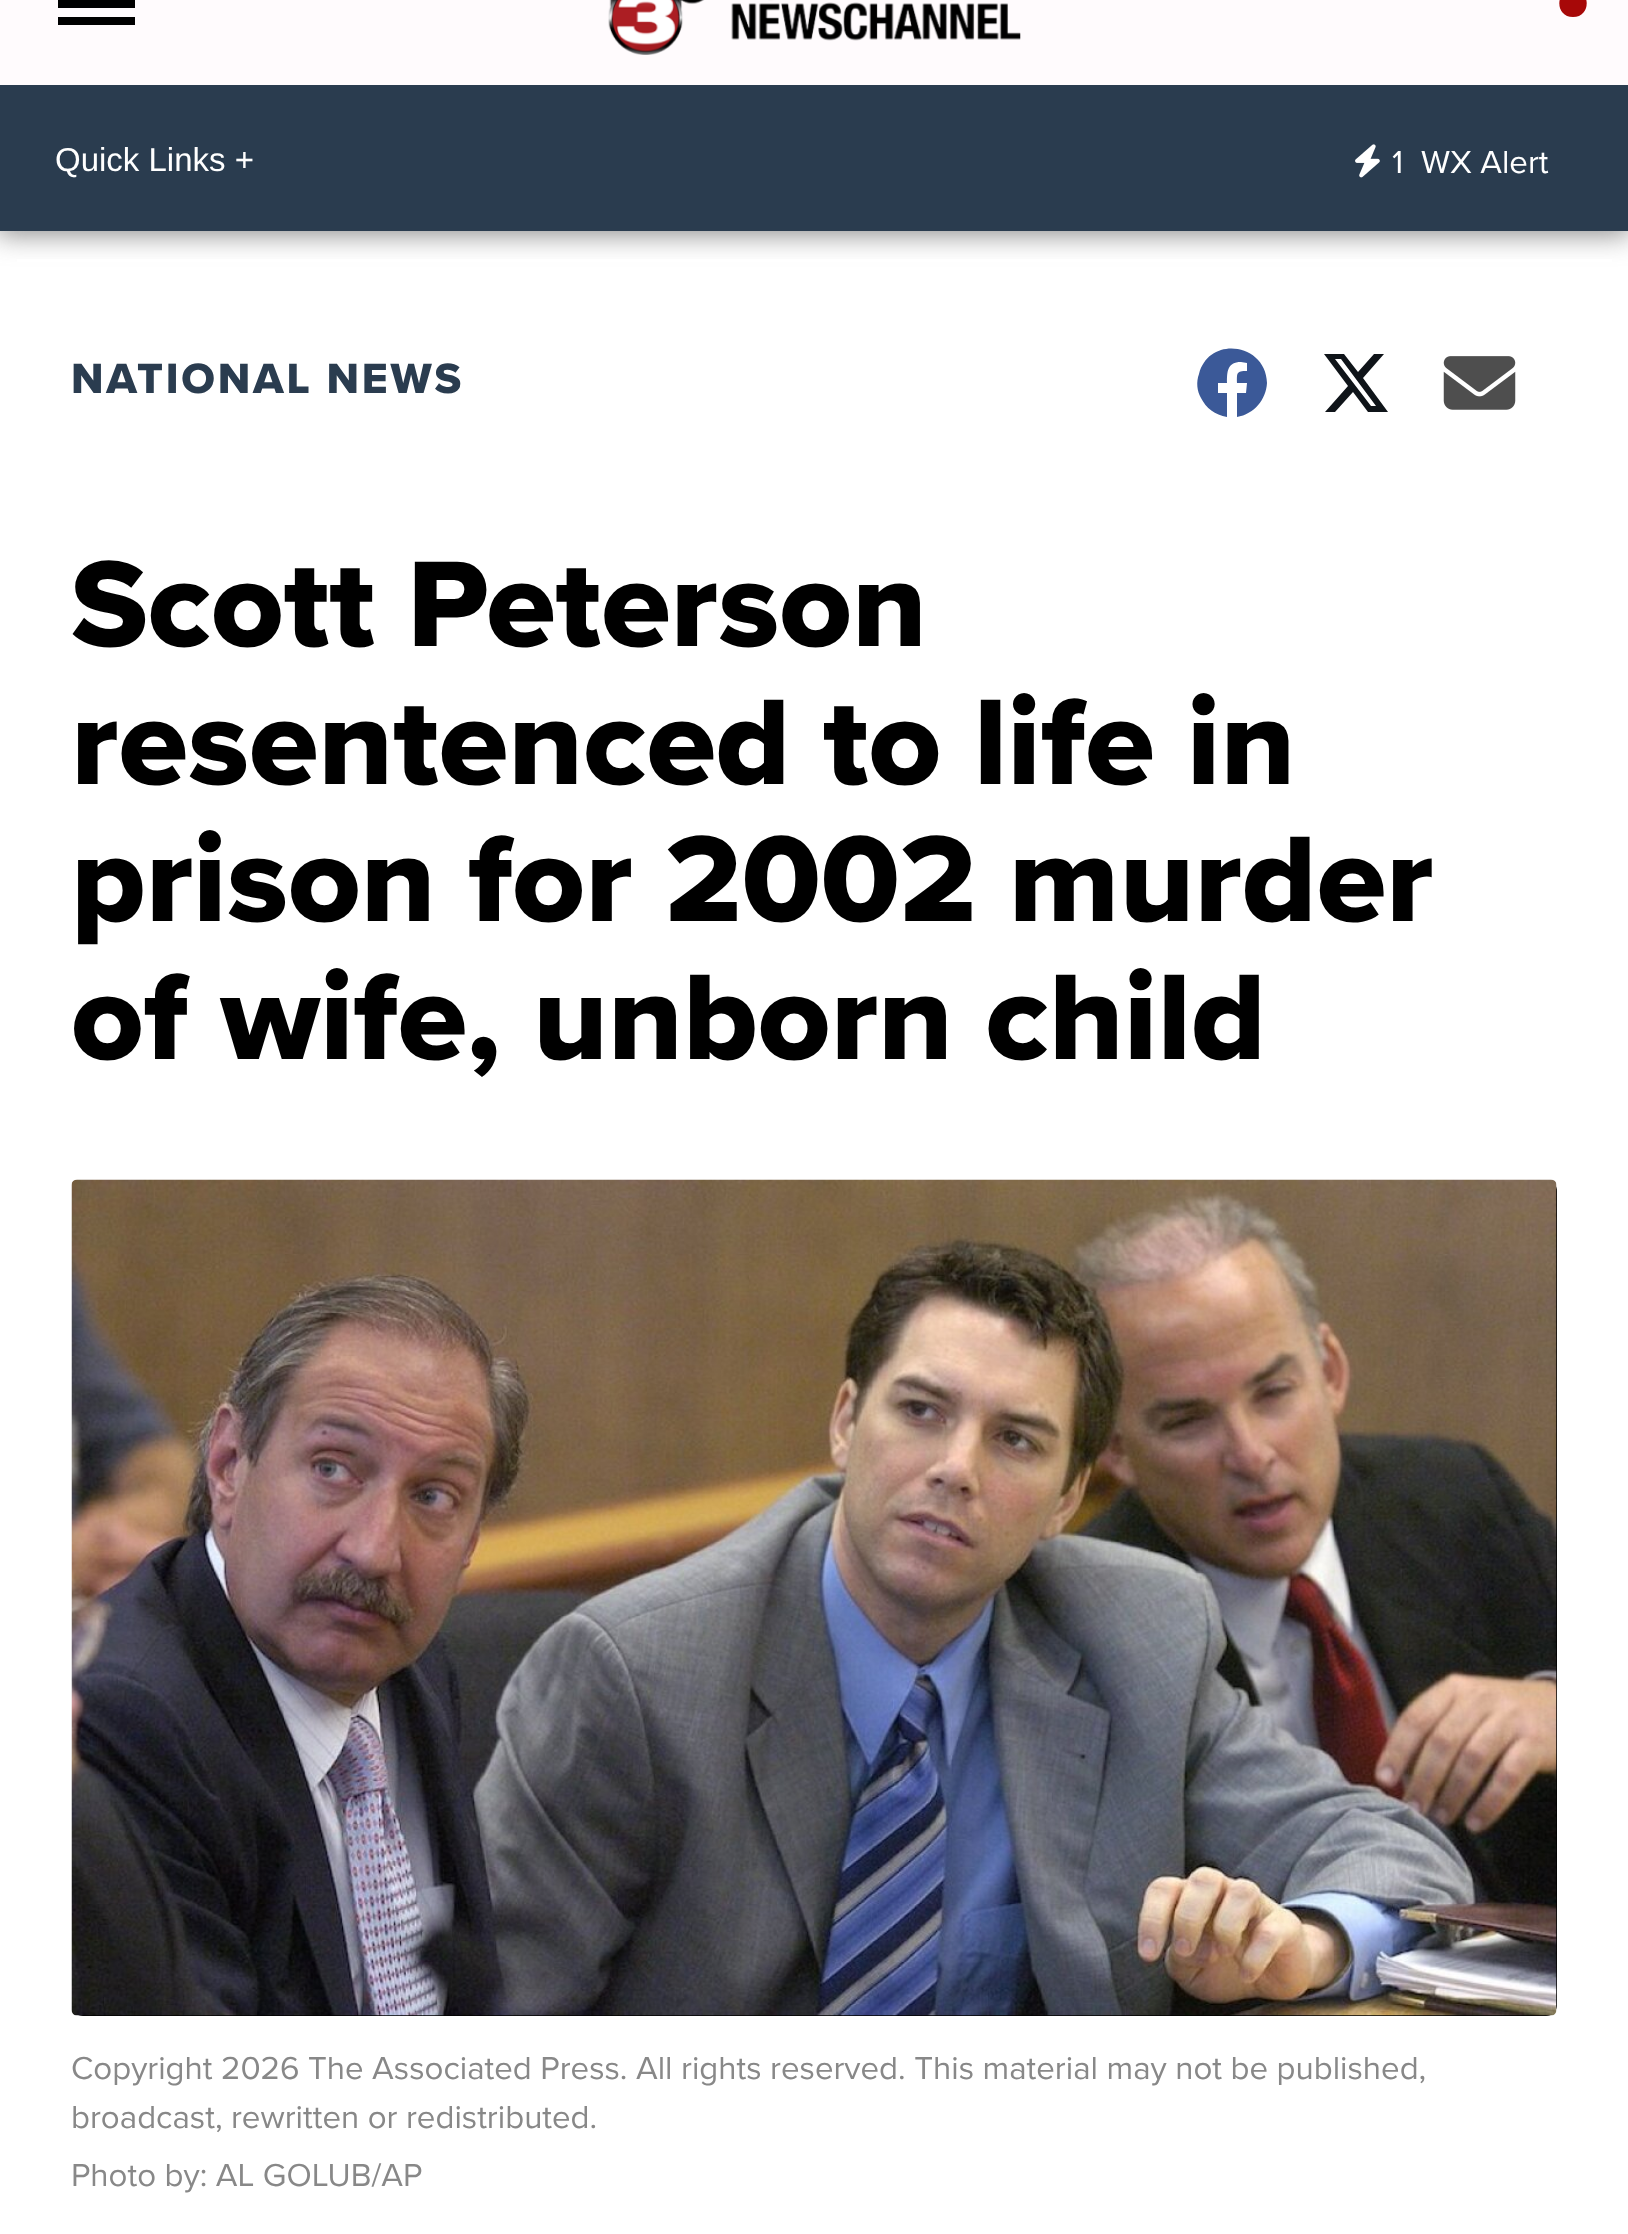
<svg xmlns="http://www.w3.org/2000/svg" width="1628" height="2234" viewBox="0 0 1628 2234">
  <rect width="100%" height="100%" fill="rgb(255,255,255)"/>
  <rect x="-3" y="-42" width="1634" height="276" fill="rgba(97,97,97,0.76)" filter="blur(14px)"/>
  <rect x="0" y="0" width="1628" height="85" fill="rgb(255,251,253)"/>
  <rect x="58" y="0" width="77" height="8" fill="rgb(0,0,0)"/>
  <rect x="58" y="17" width="77" height="8" fill="rgb(0,0,0)"/>
  <image x="608" y="0" width="413" height="55" href="pic1.png"/>
  <path d="M1573 17C1591.5 17 1591-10.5 1573-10.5C1555-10.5 1554.5 17 1573 17Z" fill="rgb(167,8,8)"/>
  <rect x="0" y="85" width="1628" height="146" fill="rgb(42,60,79)"/>
  <text x="55" y="171" font-family="Liberation Sans" font-size="33" fill="rgb(255,255,255)">Quick Links +</text>
  <image x="1355" y="144" width="25" height="34" href="pic2.png"/>
  <g font-family="Proxima Nova" font-size="33" fill="rgb(255,255,255)">
    <text x="1392" y="173">1</text>
    <text x="1421" y="173">WX Alert</text>
  </g>
  <rect x="17" y="259" width="1595" height="3" fill="rgb(255,255,255)"/>
  <text x="71" y="393" font-family="Proxima Nova" font-size="44" font-weight="800" letter-spacing="2.75" fill="rgb(42,60,79)">NATIONAL NEWS</text>
  <path d="M1267 383C1266 343 1209 335 1199 374C1196 382 1197 391 1201 398C1206 408 1215 415 1227 417V393H1218V383H1227C1227 372 1227 362 1241 362L1247 363V371C1236 371 1237 373 1237 383H1247L1246 393H1237V417C1254 414 1266 400 1267 383Z" fill="rgb(59,89,152)"/>
  <path d="M1374 354H1384L1363 378L1388 412H1368L1353 392L1335 412H1325L1348 386L1324 354H1344L1358 372ZM1371 406H1376L1341 359H1335Z" fill="rgb(15,20,25)"/>
  <image x="1443" y="356" width="73" height="54" href="pic3.png"/>
  <g font-family="Proxima Nova" font-size="126.5" font-weight="800" fill="rgb(0,0,0)">
    <text>
      <tspan x="71" y="646">Scott Peterson</tspan>
      <tspan x="71" y="784">resentenced to life in</tspan>
      <tspan x="71" y="921">prison for 2002 murder</tspan>
      <tspan x="71" y="1059">of wife, unborn child</tspan>
    </text>
  </g>
  <rect x="72" y="1180" width="1485" height="836" rx="11" fill="rgb(0,0,0)"/>
  <image x="71" y="1179" width="1486" height="837" href="pic4.png"/>
  <g font-family="Proxima Nova" font-size="33" fill="rgb(136,136,136)">
    <text>
      <tspan x="71" y="2079">Copyright 2026 The Associated Press. All rights reserved. This material may not be published,</tspan>
      <tspan x="71" y="2128">broadcast, rewritten or redistributed.</tspan>
      <tspan x="71" y="2186">Photo by: AL GOLUB/AP</tspan>
    </text>
  </g>
</svg>
